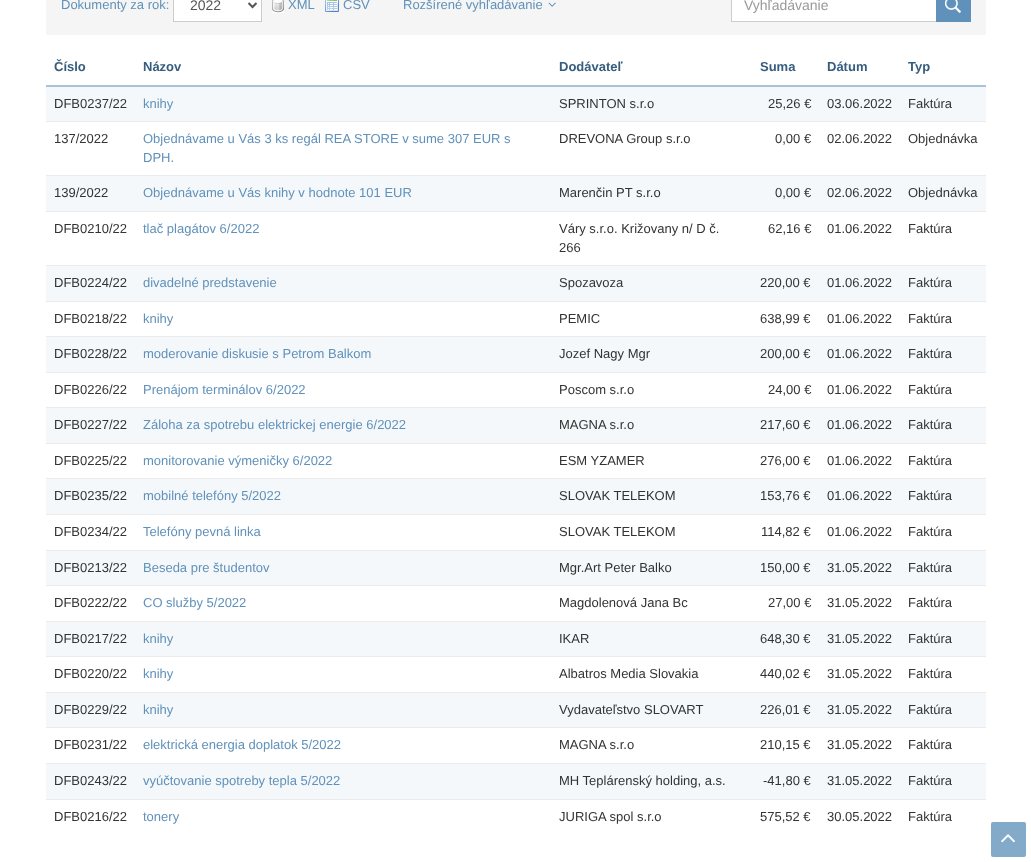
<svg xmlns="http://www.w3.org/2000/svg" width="1031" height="862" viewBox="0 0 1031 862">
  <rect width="100%" height="100%" fill="rgb(255,255,255)"/>
  <rect x="46" y="0" width="940" height="35" fill="rgb(245,245,245)"/>
  <text x="61" y="9" font-family="Liberation Sans" font-size="13" fill="rgb(96,145,186)">Dokumenty za rok:</text>
  <rect x="173.5" y="-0.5" width="88" height="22" fill="rgb(255,255,255)" stroke="rgb(204,204,204)"/>
  <path d="M248.5 3L252.5 7L256.5 3" fill="none" stroke="rgb(85,85,85)" stroke-width="2"/>
  <text x="190" y="10" font-family="Liberation Sans" font-size="14" fill="rgb(85,85,85)">2022</text>
  <image x="272" y="0" width="12" height="13" href="pic1.png"/>
  <text x="288" y="9" font-family="Liberation Sans" font-size="13" fill="rgb(96,145,186)">XML</text>
  <image x="325" y="0" width="14" height="12" href="pic2.png"/>
  <g font-family="Liberation Sans" font-size="13" fill="rgb(96,145,186)">
    <text x="343" y="9">CSV</text>
    <text x="403" y="9">Rozšírené vyhľadávanie</text>
  </g>
  <image x="548" y="2" width="8" height="5" href="pic3.png"/>
  <rect x="732" y="0" width="204" height="21" fill="rgb(255,255,255)"/>
  <rect x="731.5" y="-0.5" width="206" height="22" fill="none" stroke="rgb(204,204,204)"/>
  <text x="744" y="10" font-family="Liberation Sans" font-size="14" fill="rgb(153,153,153)">Vyhľadávanie</text>
  <rect x="936" y="0" width="35" height="22" fill="rgb(96,145,186)"/>
  <image x="945" y="0" width="16" height="13" href="pic4.png"/>
  <g font-family="Liberation Sans" font-size="13" font-weight="bold" fill="rgb(54,93,126)">
    <text x="54" y="71">Číslo</text>
    <text x="143" y="71">Názov</text>
    <text x="559" y="71">Dodávateľ</text>
    <text x="760" y="71">Suma</text>
    <text x="827" y="71">Dátum</text>
  </g>
  <rect x="46" y="85" width="940" height="2" fill="rgb(167,194,217)"/>
  <text x="908" y="71" font-family="Liberation Sans" font-size="13" font-weight="bold" fill="rgb(54,93,126)">Typ</text>
  <rect x="46" y="87" width="940" height="34" fill="rgb(245,248,251)"/>
  <text x="54" y="108" font-family="Liberation Sans" font-size="13" fill="rgb(51,51,51)">DFB0237/22</text>
  <text x="143" y="108" font-family="Liberation Sans" font-size="13" fill="rgb(96,145,186)">knihy</text>
  <g font-family="Liberation Sans" font-size="13" fill="rgb(51,51,51)">
    <text x="559" y="108">SPRINTON s.r.o</text>
    <text x="768" y="108">25,26 €</text>
    <text x="827" y="108">03.06.2022</text>
    <text x="908" y="108">Faktúra</text>
    <text x="54" y="143">137/2022</text>
  </g>
  <g font-family="Liberation Sans" font-size="13" fill="rgb(96,145,186)">
    <text>
      <tspan x="143" y="143">Objednávame u Vás 3 ks regál REA STORE v sume 307 EUR s</tspan>
      <tspan x="143" y="162">DPH.</tspan>
    </text>
  </g>
  <g font-family="Liberation Sans" font-size="13" fill="rgb(51,51,51)">
    <text x="559" y="143">DREVONA Group s.r.o</text>
    <text x="775" y="143">0,00 €</text>
    <text x="827" y="143">02.06.2022</text>
  </g>
  <rect x="46" y="121" width="940" height="1" fill="rgb(235,235,235)"/>
  <text x="908" y="143" font-family="Liberation Sans" font-size="13" fill="rgb(51,51,51)">Objednávka</text>
  <rect x="46" y="176" width="940" height="35" fill="rgb(245,248,251)"/>
  <text x="54" y="197" font-family="Liberation Sans" font-size="13" fill="rgb(51,51,51)">139/2022</text>
  <text x="143" y="197" font-family="Liberation Sans" font-size="13" fill="rgb(96,145,186)">Objednávame u Vás knihy v hodnote 101 EUR</text>
  <g font-family="Liberation Sans" font-size="13" fill="rgb(51,51,51)">
    <text x="559" y="197">Marenčin PT s.r.o</text>
    <text x="775" y="197">0,00 €</text>
    <text x="827" y="197">02.06.2022</text>
  </g>
  <rect x="46" y="175" width="940" height="1" fill="rgb(235,235,235)"/>
  <g font-family="Liberation Sans" font-size="13" fill="rgb(51,51,51)">
    <text x="908" y="197">Objednávka</text>
    <text x="54" y="233">DFB0210/22</text>
  </g>
  <text x="143" y="233" font-family="Liberation Sans" font-size="13" fill="rgb(96,145,186)">tlač plagátov 6/2022</text>
  <g font-family="Liberation Sans" font-size="13" fill="rgb(51,51,51)">
    <text>
      <tspan x="559" y="233">Váry s.r.o. Križovany n/ D č.</tspan>
      <tspan x="559" y="252">266</tspan>
    </text>
    <text x="768" y="233">62,16 €</text>
    <text x="827" y="233">01.06.2022</text>
  </g>
  <rect x="46" y="211" width="940" height="1" fill="rgb(235,235,235)"/>
  <text x="908" y="233" font-family="Liberation Sans" font-size="13" fill="rgb(51,51,51)">Faktúra</text>
  <rect x="46" y="266" width="940" height="35" fill="rgb(245,248,251)"/>
  <text x="54" y="287" font-family="Liberation Sans" font-size="13" fill="rgb(51,51,51)">DFB0224/22</text>
  <text x="143" y="287" font-family="Liberation Sans" font-size="13" fill="rgb(96,145,186)">divadelné predstavenie</text>
  <g font-family="Liberation Sans" font-size="13" fill="rgb(51,51,51)">
    <text x="559" y="287">Spozavoza</text>
    <text x="760" y="287">220,00 €</text>
    <text x="827" y="287">01.06.2022</text>
  </g>
  <rect x="46" y="265" width="940" height="1" fill="rgb(235,235,235)"/>
  <g font-family="Liberation Sans" font-size="13" fill="rgb(51,51,51)">
    <text x="908" y="287">Faktúra</text>
    <text x="54" y="323">DFB0218/22</text>
  </g>
  <text x="143" y="323" font-family="Liberation Sans" font-size="13" fill="rgb(96,145,186)">knihy</text>
  <g font-family="Liberation Sans" font-size="13" fill="rgb(51,51,51)">
    <text x="559" y="323">PEMIC</text>
    <text x="760" y="323">638,99 €</text>
    <text x="827" y="323">01.06.2022</text>
  </g>
  <rect x="46" y="301" width="940" height="1" fill="rgb(235,235,235)"/>
  <text x="908" y="323" font-family="Liberation Sans" font-size="13" fill="rgb(51,51,51)">Faktúra</text>
  <rect x="46" y="337" width="940" height="35" fill="rgb(245,248,251)"/>
  <text x="54" y="358" font-family="Liberation Sans" font-size="13" fill="rgb(51,51,51)">DFB0228/22</text>
  <text x="143" y="358" font-family="Liberation Sans" font-size="13" fill="rgb(96,145,186)">moderovanie diskusie s Petrom Balkom</text>
  <g font-family="Liberation Sans" font-size="13" fill="rgb(51,51,51)">
    <text x="559" y="358">Jozef Nagy Mgr</text>
    <text x="760" y="358">200,00 €</text>
    <text x="827" y="358">01.06.2022</text>
  </g>
  <rect x="46" y="336" width="940" height="1" fill="rgb(235,235,235)"/>
  <g font-family="Liberation Sans" font-size="13" fill="rgb(51,51,51)">
    <text x="908" y="358">Faktúra</text>
    <text x="54" y="394">DFB0226/22</text>
  </g>
  <text x="143" y="394" font-family="Liberation Sans" font-size="13" fill="rgb(96,145,186)">Prenájom terminálov 6/2022</text>
  <g font-family="Liberation Sans" font-size="13" fill="rgb(51,51,51)">
    <text x="559" y="394">Poscom s.r.o</text>
    <text x="768" y="394">24,00 €</text>
    <text x="827" y="394">01.06.2022</text>
  </g>
  <rect x="46" y="372" width="940" height="1" fill="rgb(235,235,235)"/>
  <text x="908" y="394" font-family="Liberation Sans" font-size="13" fill="rgb(51,51,51)">Faktúra</text>
  <rect x="46" y="408" width="940" height="35" fill="rgb(245,248,251)"/>
  <text x="54" y="429" font-family="Liberation Sans" font-size="13" fill="rgb(51,51,51)">DFB0227/22</text>
  <text x="143" y="429" font-family="Liberation Sans" font-size="13" fill="rgb(96,145,186)">Záloha za spotrebu elektrickej energie 6/2022</text>
  <g font-family="Liberation Sans" font-size="13" fill="rgb(51,51,51)">
    <text x="559" y="429">MAGNA s.r.o</text>
    <text x="760" y="429">217,60 €</text>
    <text x="827" y="429">01.06.2022</text>
  </g>
  <rect x="46" y="407" width="940" height="1" fill="rgb(235,235,235)"/>
  <g font-family="Liberation Sans" font-size="13" fill="rgb(51,51,51)">
    <text x="908" y="429">Faktúra</text>
    <text x="54" y="465">DFB0225/22</text>
  </g>
  <text x="143" y="465" font-family="Liberation Sans" font-size="13" fill="rgb(96,145,186)">monitorovanie výmeničky 6/2022</text>
  <g font-family="Liberation Sans" font-size="13" fill="rgb(51,51,51)">
    <text x="559" y="465">ESM YZAMER</text>
    <text x="760" y="465">276,00 €</text>
    <text x="827" y="465">01.06.2022</text>
  </g>
  <rect x="46" y="443" width="940" height="1" fill="rgb(235,235,235)"/>
  <text x="908" y="465" font-family="Liberation Sans" font-size="13" fill="rgb(51,51,51)">Faktúra</text>
  <rect x="46" y="479" width="940" height="35" fill="rgb(245,248,251)"/>
  <text x="54" y="500" font-family="Liberation Sans" font-size="13" fill="rgb(51,51,51)">DFB0235/22</text>
  <text x="143" y="500" font-family="Liberation Sans" font-size="13" fill="rgb(96,145,186)">mobilné telefóny 5/2022</text>
  <g font-family="Liberation Sans" font-size="13" fill="rgb(51,51,51)">
    <text x="559" y="500">SLOVAK TELEKOM</text>
    <text x="760" y="500">153,76 €</text>
    <text x="827" y="500">01.06.2022</text>
  </g>
  <rect x="46" y="478" width="940" height="1" fill="rgb(235,235,235)"/>
  <g font-family="Liberation Sans" font-size="13" fill="rgb(51,51,51)">
    <text x="908" y="500">Faktúra</text>
    <text x="54" y="536">DFB0234/22</text>
  </g>
  <text x="143" y="536" font-family="Liberation Sans" font-size="13" fill="rgb(96,145,186)">Telefóny pevná linka</text>
  <g font-family="Liberation Sans" font-size="13" fill="rgb(51,51,51)">
    <text x="559" y="536">SLOVAK TELEKOM</text>
    <text x="761" y="536">114,82 €</text>
    <text x="827" y="536">01.06.2022</text>
  </g>
  <rect x="46" y="514" width="940" height="1" fill="rgb(235,235,235)"/>
  <text x="908" y="536" font-family="Liberation Sans" font-size="13" fill="rgb(51,51,51)">Faktúra</text>
  <rect x="46" y="551" width="940" height="34" fill="rgb(245,248,251)"/>
  <text x="54" y="572" font-family="Liberation Sans" font-size="13" fill="rgb(51,51,51)">DFB0213/22</text>
  <text x="143" y="572" font-family="Liberation Sans" font-size="13" fill="rgb(96,145,186)">Beseda pre študentov</text>
  <g font-family="Liberation Sans" font-size="13" fill="rgb(51,51,51)">
    <text x="559" y="572">Mgr.Art Peter Balko</text>
    <text x="760" y="572">150,00 €</text>
    <text x="827" y="572">31.05.2022</text>
  </g>
  <rect x="46" y="550" width="940" height="1" fill="rgb(235,235,235)"/>
  <g font-family="Liberation Sans" font-size="13" fill="rgb(51,51,51)">
    <text x="908" y="572">Faktúra</text>
    <text x="54" y="607">DFB0222/22</text>
  </g>
  <text x="143" y="607" font-family="Liberation Sans" font-size="13" fill="rgb(96,145,186)">CO služby 5/2022</text>
  <g font-family="Liberation Sans" font-size="13" fill="rgb(51,51,51)">
    <text x="559" y="607">Magdolenová Jana Bc</text>
    <text x="768" y="607">27,00 €</text>
    <text x="827" y="607">31.05.2022</text>
  </g>
  <rect x="46" y="585" width="940" height="1" fill="rgb(235,235,235)"/>
  <text x="908" y="607" font-family="Liberation Sans" font-size="13" fill="rgb(51,51,51)">Faktúra</text>
  <rect x="46" y="622" width="940" height="34" fill="rgb(245,248,251)"/>
  <text x="54" y="643" font-family="Liberation Sans" font-size="13" fill="rgb(51,51,51)">DFB0217/22</text>
  <text x="143" y="643" font-family="Liberation Sans" font-size="13" fill="rgb(96,145,186)">knihy</text>
  <g font-family="Liberation Sans" font-size="13" fill="rgb(51,51,51)">
    <text x="559" y="643">IKAR</text>
    <text x="760" y="643">648,30 €</text>
    <text x="827" y="643">31.05.2022</text>
  </g>
  <rect x="46" y="621" width="940" height="1" fill="rgb(235,235,235)"/>
  <g font-family="Liberation Sans" font-size="13" fill="rgb(51,51,51)">
    <text x="908" y="643">Faktúra</text>
    <text x="54" y="678">DFB0220/22</text>
  </g>
  <text x="143" y="678" font-family="Liberation Sans" font-size="13" fill="rgb(96,145,186)">knihy</text>
  <g font-family="Liberation Sans" font-size="13" fill="rgb(51,51,51)">
    <text x="559" y="678">Albatros Media Slovakia</text>
    <text x="760" y="678">440,02 €</text>
    <text x="827" y="678">31.05.2022</text>
  </g>
  <rect x="46" y="656" width="940" height="1" fill="rgb(235,235,235)"/>
  <text x="908" y="678" font-family="Liberation Sans" font-size="13" fill="rgb(51,51,51)">Faktúra</text>
  <rect x="46" y="693" width="940" height="34" fill="rgb(245,248,251)"/>
  <text x="54" y="714" font-family="Liberation Sans" font-size="13" fill="rgb(51,51,51)">DFB0229/22</text>
  <text x="143" y="714" font-family="Liberation Sans" font-size="13" fill="rgb(96,145,186)">knihy</text>
  <g font-family="Liberation Sans" font-size="13" fill="rgb(51,51,51)">
    <text x="559" y="714">Vydavateľstvo SLOVART</text>
    <text x="760" y="714">226,01 €</text>
    <text x="827" y="714">31.05.2022</text>
  </g>
  <rect x="46" y="692" width="940" height="1" fill="rgb(235,235,235)"/>
  <g font-family="Liberation Sans" font-size="13" fill="rgb(51,51,51)">
    <text x="908" y="714">Faktúra</text>
    <text x="54" y="749">DFB0231/22</text>
  </g>
  <text x="143" y="749" font-family="Liberation Sans" font-size="13" fill="rgb(96,145,186)">elektrická energia doplatok 5/2022</text>
  <g font-family="Liberation Sans" font-size="13" fill="rgb(51,51,51)">
    <text x="559" y="749">MAGNA s.r.o</text>
    <text x="760" y="749">210,15 €</text>
    <text x="827" y="749">31.05.2022</text>
  </g>
  <rect x="46" y="727" width="940" height="1" fill="rgb(235,235,235)"/>
  <text x="908" y="749" font-family="Liberation Sans" font-size="13" fill="rgb(51,51,51)">Faktúra</text>
  <rect x="46" y="764" width="940" height="35" fill="rgb(245,248,251)"/>
  <text x="54" y="785" font-family="Liberation Sans" font-size="13" fill="rgb(51,51,51)">DFB0243/22</text>
  <text x="143" y="785" font-family="Liberation Sans" font-size="13" fill="rgb(96,145,186)">vyúčtovanie spotreby tepla 5/2022</text>
  <g font-family="Liberation Sans" font-size="13" fill="rgb(51,51,51)">
    <text x="559" y="785">MH Teplárenský holding, a.s.</text>
    <text x="763" y="785">-41,80 €</text>
    <text x="827" y="785">31.05.2022</text>
  </g>
  <rect x="46" y="763" width="940" height="1" fill="rgb(235,235,235)"/>
  <g font-family="Liberation Sans" font-size="13" fill="rgb(51,51,51)">
    <text x="908" y="785">Faktúra</text>
    <text x="54" y="821">DFB0216/22</text>
  </g>
  <text x="143" y="821" font-family="Liberation Sans" font-size="13" fill="rgb(96,145,186)">tonery</text>
  <g font-family="Liberation Sans" font-size="13" fill="rgb(51,51,51)">
    <text x="559" y="821">JURIGA spol s.r.o</text>
    <text x="760" y="821">575,52 €</text>
    <text x="827" y="821">30.05.2022</text>
  </g>
  <rect x="46" y="799" width="940" height="1" fill="rgb(235,235,235)"/>
  <text x="908" y="821" font-family="Liberation Sans" font-size="13" fill="rgb(51,51,51)">Faktúra</text>
  <rect x="991" y="822" width="35" height="35" rx="2" fill="rgb(132,170,201)"/>
  <image x="1001" y="834" width="14" height="9" href="pic5.png"/>
</svg>
